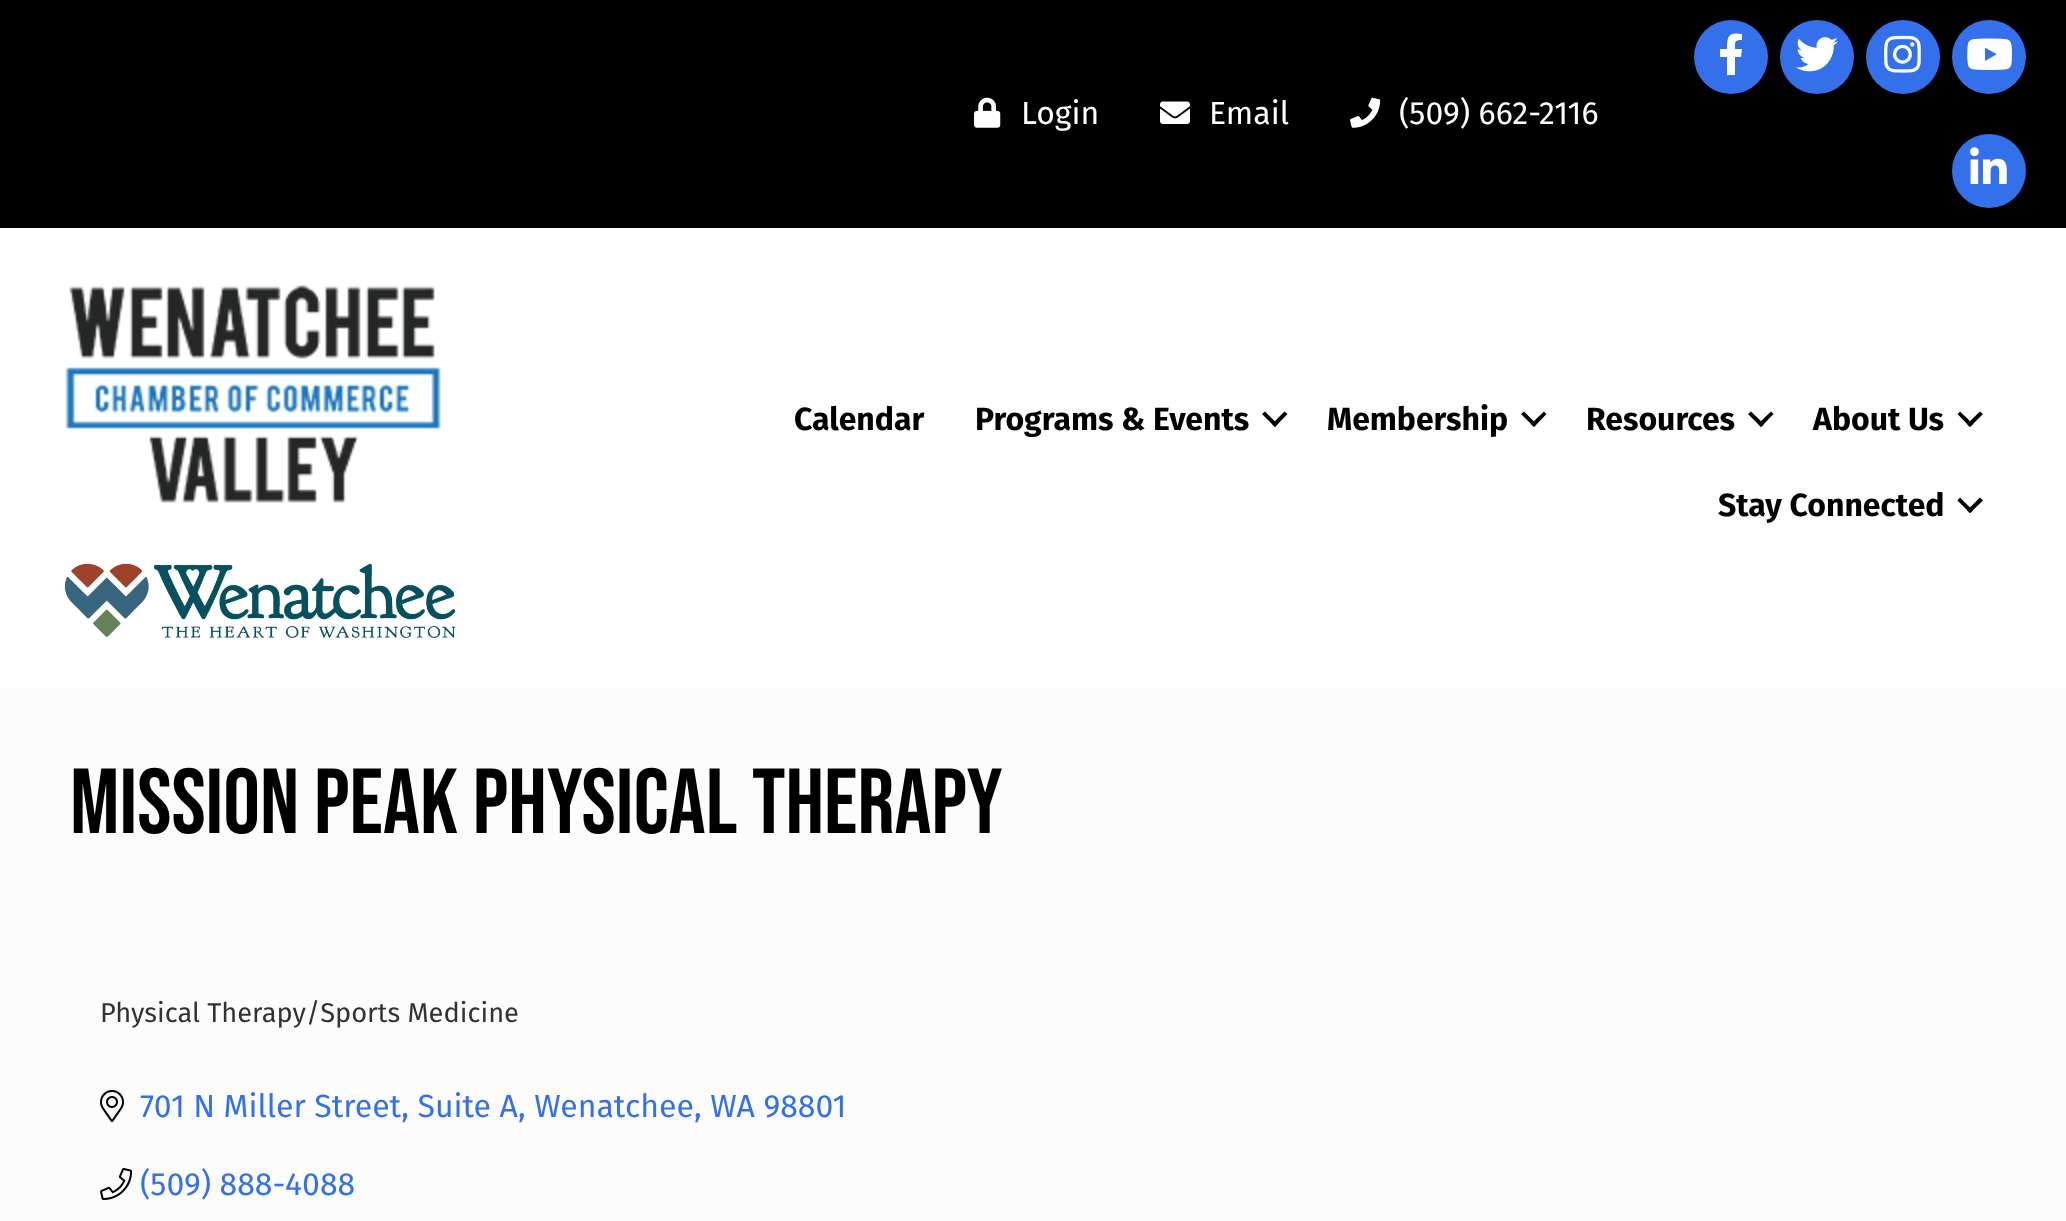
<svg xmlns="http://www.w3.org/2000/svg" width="2066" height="1221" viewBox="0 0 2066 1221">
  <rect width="100%" height="100%" fill="rgb(255,255,255)"/>
  <rect x="0" y="0" width="2066" height="228" fill="rgb(0,0,0)"/>
  <image x="974" y="97" width="27" height="31" href="pic1.png"/>
  <text x="1021" y="124" font-family="Fira Sans" font-size="32" fill="rgb(255,255,255)">Login</text>
  <image x="1160" y="101" width="30" height="23" href="pic2.png"/>
  <text x="1209" y="124" font-family="Fira Sans" font-size="32" fill="rgb(255,255,255)">Email</text>
  <image x="1350" y="97" width="31" height="31" href="pic3.png"/>
  <text x="1399" y="124" font-family="Fira Sans" font-size="32" fill="rgb(255,255,255)">(509) 662-2116</text>
  <circle cx="1731" cy="57" r="37" fill="rgb(51,112,233)"/>
  <path d="M1741 57H1735V75H1727V57H1720V49H1727C1727 35 1729 32 1742 34V40C1734 40 1735 42 1735 49H1742Z" fill="rgb(255,255,255)"/>
  <circle cx="1817" cy="57" r="37" fill="rgb(51,112,233)"/>
  <image x="1796" y="37" width="42" height="35" href="pic4.png"/>
  <circle cx="1903" cy="57" r="37" fill="rgb(51,112,233)"/>
  <image x="1884" y="35" width="37" height="38" href="pic5.png"/>
  <circle cx="1989" cy="57" r="37" fill="rgb(51,112,233)"/>
  <image x="1967" y="38" width="45" height="32" href="pic6.png"/>
  <circle cx="1989" cy="171" r="37" fill="rgb(51,112,233)"/>
  <image x="1970" y="147" width="37" height="37" href="pic7.png"/>
  <image x="65" y="285" width="376" height="218" href="pic8.png"/>
  <image x="64" y="563" width="392" height="75" href="pic9.png"/>
  <g font-family="Fira Sans" font-size="32" font-weight="bold" fill="rgb(0,0,0)">
    <text x="794" y="430">Calendar</text>
    <text x="975" y="430">Programs &amp; Events</text>
  </g>
  <path d="M1284.5 411.5L1287.5 414L1275 427L1272 424Z" fill="rgb(0,0,0)"/>
  <path d="M1265 411.5L1277.5 424L1275 427L1262 414Z" fill="rgb(0,0,0)"/>
  <text x="1327" y="430" font-family="Fira Sans" font-size="32" font-weight="bold" fill="rgb(0,0,0)">Membership</text>
  <path d="M1544 411.5L1546.5 414L1534 427L1531 424Z" fill="rgb(0,0,0)"/>
  <path d="M1524 411.5L1536.5 424L1534 427L1521 414Z" fill="rgb(0,0,0)"/>
  <text x="1586" y="430" font-family="Fira Sans" font-size="32" font-weight="bold" fill="rgb(0,0,0)">Resources</text>
  <path d="M1771 411.5L1773.5 414L1761 427L1758 424Z" fill="rgb(0,0,0)"/>
  <path d="M1751 411.5L1764 424L1761 427L1748 414Z" fill="rgb(0,0,0)"/>
  <text x="1813" y="430" font-family="Fira Sans" font-size="32" font-weight="bold" fill="rgb(0,0,0)">About Us</text>
  <path d="M1980 411.5L1983 414L1970 427L1967 424Z" fill="rgb(0,0,0)"/>
  <path d="M1960 411.5L1973 424L1970 427L1957.5 414Z" fill="rgb(0,0,0)"/>
  <text x="1718" y="516" font-family="Fira Sans" font-size="32" font-weight="bold" fill="rgb(0,0,0)">Stay Connected</text>
  <path d="M1980 497.5L1983 500.5L1970 513L1967 510.5Z" fill="rgb(0,0,0)"/>
  <path d="M1960 497.5L1973 510.5L1970 513L1957.5 500.5Z" fill="rgb(0,0,0)"/>
  <rect x="0" y="688" width="2066" height="533" fill="rgb(252,252,252)"/>
  <text x="70" y="833" font-family="Bebas Neue" font-size="92" fill="rgb(0,0,0)">Mission Peak Physical Therapy</text>
  <text x="100" y="1022" font-family="Fira Sans" font-size="27.25" fill="rgb(50,50,50)">Physical Therapy/Sports Medicine</text>
  <image x="100" y="1090" width="24" height="32" href="pic10.png"/>
  <g font-family="Fira Sans" font-size="32" fill="rgb(51,112,233)">
    <text x="140" y="1117">701 N Miller Street, Suite A, Wenatchee</text>
    <text x="694" y="1117">, WA 98801</text>
  </g>
  <image x="100" y="1168" width="33" height="32" href="pic11.png"/>
  <text x="140" y="1195" font-family="Fira Sans" font-size="32" fill="rgb(51,112,233)">(509) 888-4088</text>
</svg>
